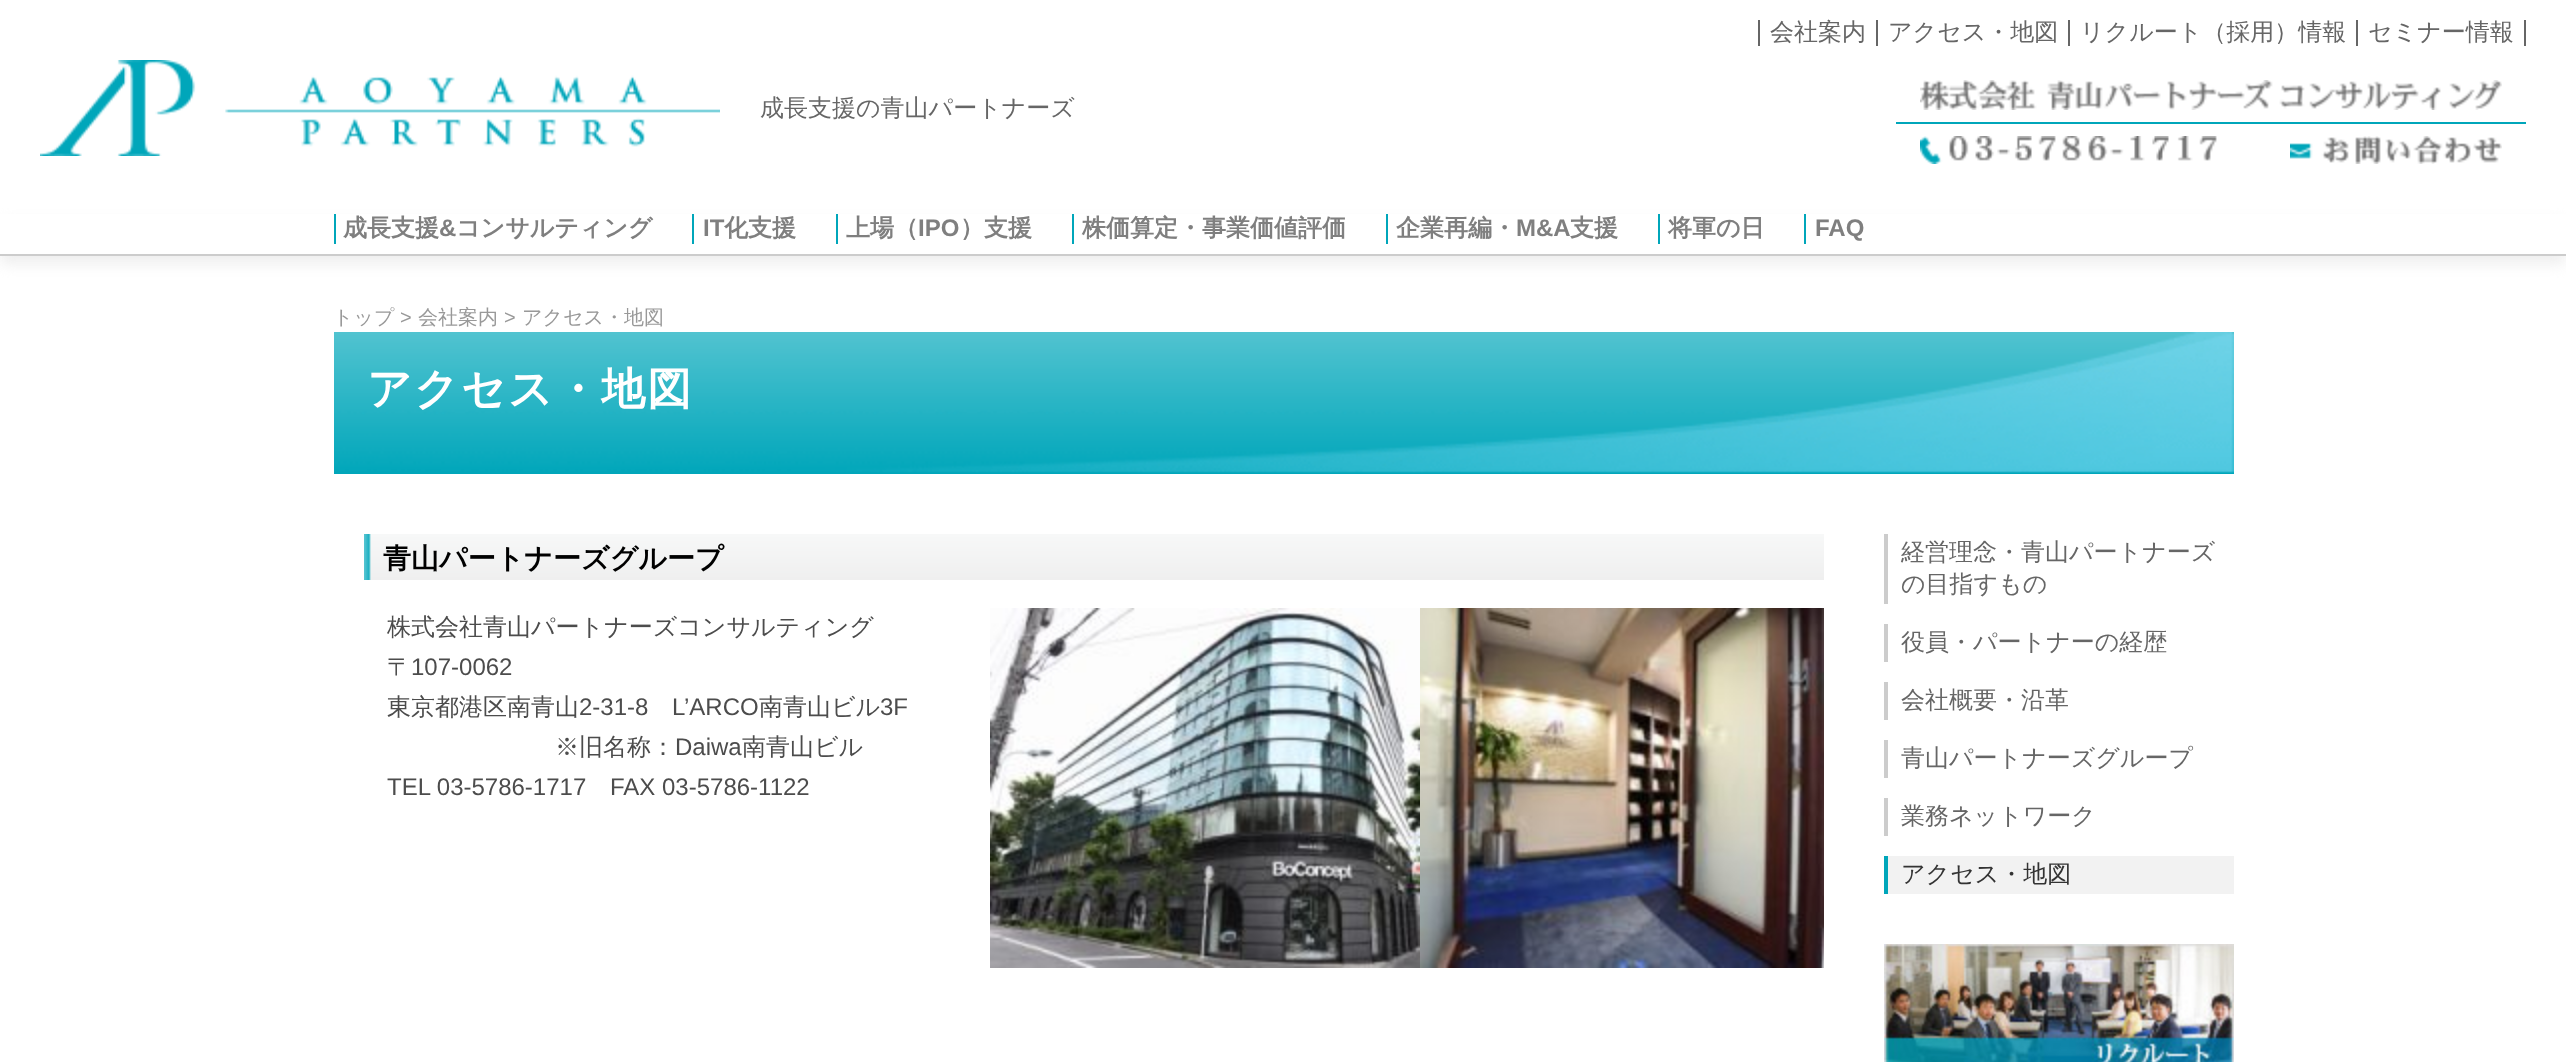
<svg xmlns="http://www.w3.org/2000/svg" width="2566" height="1062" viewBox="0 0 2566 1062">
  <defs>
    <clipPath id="clip1"><path d="M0 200H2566V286H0ZM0 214H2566V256H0Z" clip-rule="evenodd"/></clipPath>
  </defs>
  <rect width="100%" height="100%" fill="rgb(255,255,255)"/>
  <rect x="1876" y="20" width="2" height="26" fill="rgb(102,102,102)"/>
  <rect x="1758" y="20" width="2" height="26" fill="rgb(102,102,102)"/>
  <text x="1770" y="40" font-family="WenQuanYi Zen Hei" font-size="24" font-weight="500" fill="rgb(102,102,102)">会社案内</text>
  <rect x="2068" y="20" width="2" height="26" fill="rgb(102,102,102)"/>
  <text x="1888" y="40" font-family="WenQuanYi Zen Hei" font-size="24" font-weight="500" fill="rgb(102,102,102)">アクセス・地図</text>
  <rect x="2356" y="20" width="2" height="26" fill="rgb(102,102,102)"/>
  <text x="2080" y="40" font-family="WenQuanYi Zen Hei" font-size="24" font-weight="500" fill="rgb(102,102,102)">リクルート（採用）情報</text>
  <rect x="2524" y="20" width="2" height="26" fill="rgb(102,102,102)"/>
  <text x="2368" y="40" font-family="WenQuanYi Zen Hei" font-size="24" font-weight="500" fill="rgb(102,102,102)">セミナー情報</text>
  <image x="40" y="60" width="680" height="96" href="pic1.png"/>
  <text x="760" y="116" font-family="WenQuanYi Zen Hei" font-size="24" font-weight="500" fill="rgb(102,102,102)">成長支援の青山パートナーズ</text>
  <rect x="1896" y="122" width="630" height="2" fill="rgb(0,166,186)"/>
  <image x="1920" y="80" width="582" height="30" href="pic2.png"/>
  <image x="1920" y="136" width="297" height="28" href="pic3.png"/>
  <image x="2290" y="136" width="212" height="28" href="pic4.png"/>
  <g clip-path="url(#clip1)">
    <rect x="0" y="222" width="2566" height="42" fill="rgb(238,238,238)" filter="blur(7px)"/>
  </g>
  <rect x="0" y="254" width="2566" height="2" fill="rgb(204,204,204)"/>
  <rect x="334" y="214" width="2" height="30" fill="rgb(0,166,186)"/>
  <text x="343" y="236" font-family="WenQuanYi Zen Hei" font-size="24" font-weight="bold" fill="rgb(127,127,127)">成長支援</text>
  <text x="439" y="236" font-family="Liberation Sans" font-size="24" font-weight="bold" fill="rgb(127,127,127)">&amp;</text>
  <text x="456" y="236" font-family="WenQuanYi Zen Hei" font-size="24" font-weight="bold" fill="rgb(127,127,127)">コンサルティング</text>
  <rect x="692" y="214" width="2" height="30" fill="rgb(0,166,186)"/>
  <text x="703" y="236" font-family="Liberation Sans" font-size="24" font-weight="bold" fill="rgb(127,127,127)">IT</text>
  <text x="724" y="236" font-family="WenQuanYi Zen Hei" font-size="24" font-weight="bold" fill="rgb(127,127,127)">化支援</text>
  <rect x="836" y="214" width="2" height="30" fill="rgb(0,166,186)"/>
  <text x="846" y="236" font-family="WenQuanYi Zen Hei" font-size="24" font-weight="bold" fill="rgb(127,127,127)">上場（</text>
  <text x="918" y="236" font-family="Liberation Sans" font-size="24" font-weight="bold" fill="rgb(127,127,127)">IPO</text>
  <text x="960" y="236" font-family="WenQuanYi Zen Hei" font-size="24" font-weight="bold" fill="rgb(127,127,127)">）支援</text>
  <rect x="1072" y="214" width="2" height="30" fill="rgb(0,166,186)"/>
  <text x="1082" y="236" font-family="WenQuanYi Zen Hei" font-size="24" font-weight="bold" fill="rgb(127,127,127)">株価算定・事業価値評価</text>
  <rect x="1386" y="214" width="2" height="30" fill="rgb(0,166,186)"/>
  <text x="1396" y="236" font-family="WenQuanYi Zen Hei" font-size="24" font-weight="bold" fill="rgb(127,127,127)">企業再編・</text>
  <text x="1516" y="236" font-family="Liberation Sans" font-size="24" font-weight="bold" fill="rgb(127,127,127)">M&amp;A</text>
  <text x="1570" y="236" font-family="WenQuanYi Zen Hei" font-size="24" font-weight="bold" fill="rgb(127,127,127)">支援</text>
  <rect x="1658" y="214" width="2" height="30" fill="rgb(0,166,186)"/>
  <text x="1668" y="236" font-family="WenQuanYi Zen Hei" font-size="24" font-weight="bold" fill="rgb(127,127,127)">将軍の日</text>
  <rect x="1804" y="214" width="2" height="30" fill="rgb(0,166,186)"/>
  <text x="1815" y="236" font-family="Liberation Sans" font-size="24" font-weight="bold" fill="rgb(127,127,127)">FAQ</text>
  <text x="333" y="324" font-family="WenQuanYi Zen Hei" font-size="20" font-weight="500" fill="rgb(153,153,153)">トップ</text>
  <text x="400" y="324" font-family="Liberation Sans" font-size="20" fill="rgb(153,153,153)">&gt;</text>
  <text x="418" y="324" font-family="WenQuanYi Zen Hei" font-size="20" font-weight="500" fill="rgb(153,153,153)">会社案内</text>
  <text x="504" y="324" font-family="Liberation Sans" font-size="20" fill="rgb(153,153,153)">&gt;</text>
  <text x="522" y="324" font-family="WenQuanYi Zen Hei" font-size="20" font-weight="500" fill="rgb(153,153,153)">アクセス・地図</text>
  <image x="334" y="332" width="1900" height="142" href="pic5.png"/>
  <text x="367" y="404" font-family="WenQuanYi Zen Hei" font-size="44" font-weight="bold" letter-spacing="2" fill="rgb(255,255,255)">アクセス・地図</text>
  <image x="364" y="534" width="1460" height="46" href="pic6.png"/>
  <text x="383" y="568" font-family="WenQuanYi Zen Hei" font-size="28" font-weight="bold" fill="rgb(0,0,0)">青山パートナーズグループ</text>
  <text x="387" y="635" font-family="WenQuanYi Zen Hei" font-size="24" font-weight="500" fill="rgb(76,76,76)">株式会社青山パートナーズコンサルティング</text>
  <image x="990" y="608" width="430" height="360" href="pic7.png"/>
  <image x="1420" y="608" width="404" height="360" href="pic8.png"/>
  <text x="387" y="675" font-family="WenQuanYi Zen Hei" font-size="24" font-weight="500" fill="rgb(76,76,76)">〒</text>
  <text x="411" y="675" font-family="Liberation Sans" font-size="24" fill="rgb(76,76,76)">107-0062</text>
  <text x="387" y="715" font-family="WenQuanYi Zen Hei" font-size="24" font-weight="500" fill="rgb(76,76,76)">東京都港区南青山</text>
  <g font-family="Liberation Sans" font-size="24" fill="rgb(76,76,76)">
    <text x="579" y="715">2-31-8</text>
    <text x="672" y="715">L’ARCO</text>
  </g>
  <text x="759" y="715" font-family="WenQuanYi Zen Hei" font-size="24" font-weight="500" fill="rgb(76,76,76)">南青山ビル</text>
  <text x="880" y="715" font-family="Liberation Sans" font-size="24" fill="rgb(76,76,76)">3F</text>
  <text x="555" y="755" font-family="WenQuanYi Zen Hei" font-size="24" font-weight="500" fill="rgb(76,76,76)">※旧名称：</text>
  <text x="675" y="755" font-family="Liberation Sans" font-size="24" fill="rgb(76,76,76)">Daiwa</text>
  <text x="742" y="755" font-family="WenQuanYi Zen Hei" font-size="24" font-weight="500" fill="rgb(76,76,76)">南青山ビル</text>
  <g font-family="Liberation Sans" font-size="24" fill="rgb(76,76,76)">
    <text x="387" y="795">TEL 03-5786-1717</text>
    <text x="610" y="795">FAX 03-5786-1122</text>
  </g>
  <rect x="1884" y="534" width="4" height="70" fill="rgb(204,204,204)"/>
  <g font-family="WenQuanYi Zen Hei" font-size="24" font-weight="500" fill="rgb(102,102,102)">
    <text>
      <tspan x="1901" y="560">経営理念・青山パートナーズ</tspan>
      <tspan x="1901" y="592">の目指すもの</tspan>
    </text>
  </g>
  <rect x="1884" y="624" width="4" height="38" fill="rgb(204,204,204)"/>
  <text x="1901" y="650" font-family="WenQuanYi Zen Hei" font-size="24" font-weight="500" fill="rgb(102,102,102)">役員・パートナーの経歴</text>
  <rect x="1884" y="682" width="4" height="38" fill="rgb(204,204,204)"/>
  <text x="1901" y="708" font-family="WenQuanYi Zen Hei" font-size="24" font-weight="500" fill="rgb(102,102,102)">会社概要・沿革</text>
  <rect x="1884" y="740" width="4" height="38" fill="rgb(204,204,204)"/>
  <text x="1901" y="766" font-family="WenQuanYi Zen Hei" font-size="24" font-weight="500" fill="rgb(102,102,102)">青山パートナーズグループ</text>
  <rect x="1884" y="798" width="4" height="38" fill="rgb(204,204,204)"/>
  <text x="1901" y="824" font-family="WenQuanYi Zen Hei" font-size="24" font-weight="500" fill="rgb(102,102,102)">業務ネットワーク</text>
  <rect x="1888" y="856" width="346" height="38" fill="rgb(242,242,242)"/>
  <rect x="1884" y="856" width="4" height="38" fill="rgb(0,166,186)"/>
  <text x="1901" y="882" font-family="WenQuanYi Zen Hei" font-size="24" font-weight="500" fill="rgb(51,51,51)">アクセス・地図</text>
  <image x="1884" y="944" width="350" height="118" href="pic9.png"/>
</svg>
